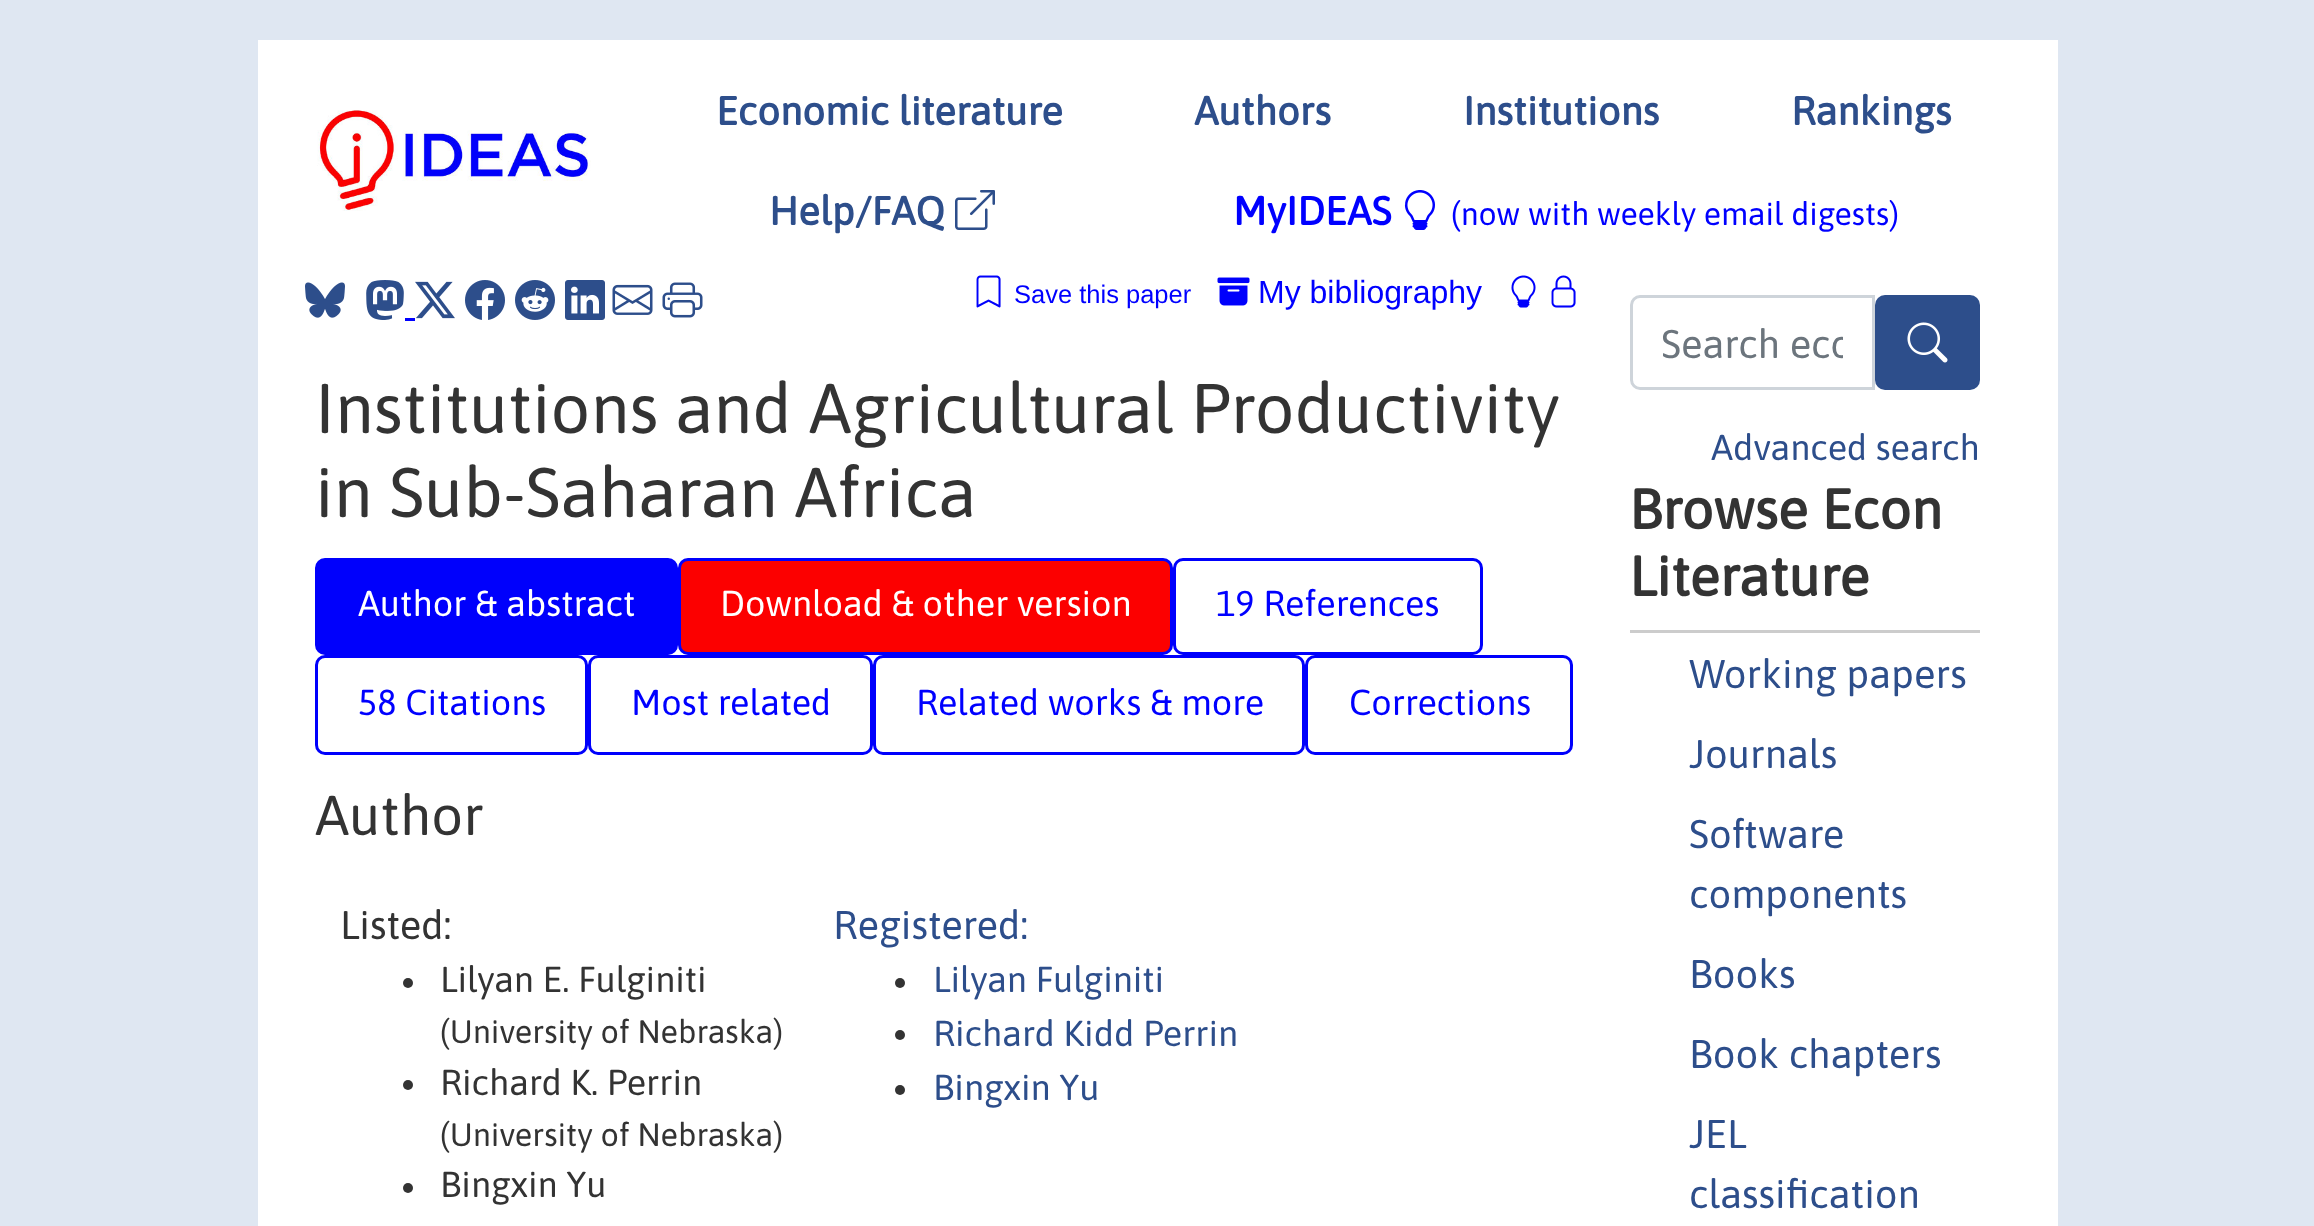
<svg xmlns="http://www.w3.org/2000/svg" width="2314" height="1226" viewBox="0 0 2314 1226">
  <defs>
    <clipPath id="clip1"><rect x="1663" y="320" width="180" height="45"/></clipPath>
  </defs>
  <rect width="100%" height="100%" fill="rgb(223,231,242)"/>
  <rect x="258" y="40" width="1800" height="1186" fill="rgb(255,255,255)"/>
  <image x="317" y="110" width="274" height="101" href="pic1.png"/>
  <g font-family="Asap" font-size="40" font-weight="bold" fill="rgb(45,78,139)">
    <text x="716" y="125">Economic literature</text>
    <text x="1194" y="125">Authors</text>
    <text x="1463" y="125">Institutions</text>
    <text x="1791" y="125">Rankings</text>
    <text x="769" y="225">Help/FAQ</text>
  </g>
  <image x="955" y="190" width="40" height="40" href="pic2.png"/>
  <text x="1233" y="225" font-family="Asap" font-size="40" font-weight="bold" fill="rgb(0,0,255)">MyIDEAS</text>
  <image x="1404" y="190" width="31" height="40" href="pic3.png"/>
  <text x="1451" y="225" font-family="Asap" font-size="32" fill="rgb(0,0,255)">(now with weekly email digests)</text>
  <image x="305" y="282" width="40" height="36" href="pic4.png"/>
  <image x="366" y="280" width="38" height="40" href="pic5.png"/>
  <rect x="405" y="318" width="10" height="3" fill="rgb(0,0,255)"/>
  <image x="415" y="281" width="40" height="38" href="pic6.png"/>
  <image x="465" y="280" width="40" height="40" href="pic7.png"/>
  <image x="515" y="280" width="40" height="40" href="pic8.png"/>
  <image x="565" y="280" width="40" height="40" href="pic9.png"/>
  <image x="612" y="284" width="41" height="31" href="pic10.png"/>
  <image x="662" y="282" width="41" height="36" href="pic11.png"/>
  <image x="976" y="275" width="25" height="33" href="pic12.png"/>
  <text x="1014" y="303" font-family="Liberation Sans" font-size="25.5" fill="rgb(0,0,255)">Save this paper</text>
  <image x="1217" y="277" width="33" height="29" href="pic13.png"/>
  <text x="1258" y="303" font-family="Liberation Sans" font-size="32" fill="rgb(0,0,255)">My bibliography</text>
  <image x="1511" y="275" width="25" height="33" href="pic14.png"/>
  <image x="1551" y="275" width="25" height="33" href="pic15.png"/>
  <g font-family="Asap" font-size="70" fill="rgb(51,51,51)">
    <text>
      <tspan x="315" y="433">Institutions and Agricultural Productivity</tspan>
      <tspan x="315" y="517">in Sub-Saharan Africa</tspan>
    </text>
  </g>
  <rect x="316.5" y="559.5" width="360" height="94" rx="8.5" fill="rgb(0,0,252)" stroke="rgb(0,0,252)" stroke-width="3"/>
  <text x="358" y="616" font-family="Asap" font-size="36" fill="rgb(255,255,255)">Author &amp; abstract</text>
  <rect x="679.5" y="559.5" width="492" height="94" rx="8.5" fill="rgb(252,0,0)" stroke="rgb(0,0,252)" stroke-width="3"/>
  <text x="720" y="616" font-family="Asap" font-size="36" fill="rgb(255,255,255)">Download &amp; other version</text>
  <rect x="1174.5" y="559.5" width="307" height="94" rx="8.5" fill="none" stroke="rgb(0,0,252)" stroke-width="3"/>
  <text x="1216" y="616" font-family="Asap" font-size="36" fill="rgb(0,0,255)">19 References</text>
  <rect x="316.5" y="656.5" width="270" height="97" rx="8.5" fill="none" stroke="rgb(0,0,252)" stroke-width="3"/>
  <text x="358" y="715" font-family="Asap" font-size="36" fill="rgb(0,0,255)">58 Citations</text>
  <rect x="589.5" y="656.5" width="282" height="97" rx="8.5" fill="none" stroke="rgb(0,0,252)" stroke-width="3"/>
  <text x="631" y="715" font-family="Asap" font-size="36" fill="rgb(0,0,255)">Most related</text>
  <rect x="874.5" y="656.5" width="429" height="97" rx="8.5" fill="none" stroke="rgb(0,0,252)" stroke-width="3"/>
  <text x="916" y="715" font-family="Asap" font-size="36" fill="rgb(0,0,255)">Related works &amp; more</text>
  <rect x="1306.5" y="656.5" width="265" height="97" rx="8.5" fill="none" stroke="rgb(0,0,252)" stroke-width="3"/>
  <text x="1349" y="715" font-family="Asap" font-size="36" fill="rgb(0,0,255)">Corrections</text>
  <text x="315" y="835" font-family="Asap" font-size="56" fill="rgb(51,51,51)">Author</text>
  <text x="340" y="939" font-family="Asap" font-size="40" fill="rgb(51,51,51)">Listed:</text>
  <circle cx="408" cy="983" r="5" fill="rgb(51,51,51)"/>
  <text x="440" y="992" font-family="Asap" font-size="36" fill="rgb(51,51,51)">Lilyan E. Fulginiti</text>
  <text x="440" y="1043" font-family="Asap" font-size="32.4" fill="rgb(51,51,51)">(University of Nebraska)</text>
  <circle cx="408" cy="1085" r="5" fill="rgb(51,51,51)"/>
  <text x="440" y="1095" font-family="Asap" font-size="36" fill="rgb(51,51,51)">Richard K. Perrin</text>
  <text x="440" y="1146" font-family="Asap" font-size="32.4" fill="rgb(51,51,51)">(University of Nebraska)</text>
  <circle cx="408" cy="1188" r="5" fill="rgb(51,51,51)"/>
  <text x="440" y="1197" font-family="Asap" font-size="36" fill="rgb(51,51,51)">Bingxin Yu</text>
  <text x="833" y="939" font-family="Asap" font-size="40" fill="rgb(45,78,139)">Registered:</text>
  <circle cx="900" cy="983" r="5" fill="rgb(51,51,51)"/>
  <text x="933" y="992" font-family="Asap" font-size="36" fill="rgb(45,78,139)">Lilyan Fulginiti</text>
  <circle cx="900" cy="1035" r="5" fill="rgb(51,51,51)"/>
  <text x="933" y="1046" font-family="Asap" font-size="36" fill="rgb(45,78,139)">Richard Kidd Perrin</text>
  <circle cx="900" cy="1090" r="5" fill="rgb(51,51,51)"/>
  <text x="933" y="1100" font-family="Asap" font-size="36" fill="rgb(45,78,139)">Bingxin Yu</text>
  <path d="M1640 296.5H1873.5V388.5H1640C1635.5 388.5 1631.5 384.5 1631.5 380V305C1631.5 300.5 1635.5 296.5 1640 296.5Z" fill="none" stroke="rgb(206,212,218)" stroke-width="3"/>
  <g clip-path="url(#clip1)">
    <text x="1661" y="358" font-family="Asap" font-size="40" fill="rgb(108,117,125)">Search eco</text>
  </g>
  <rect x="1875" y="295" width="105" height="95" rx="10" fill="rgb(45,78,139)"/>
  <image x="1907" y="322" width="41" height="41" href="pic16.png"/>
  <text x="1711" y="460" font-family="Asap" font-size="36" fill="rgb(45,78,139)">Advanced search</text>
  <g font-family="Asap" font-size="56" font-weight="bold" fill="rgb(51,51,51)">
    <text>
      <tspan x="1629" y="529">Browse Econ</tspan>
      <tspan x="1629" y="596">Literature</tspan>
    </text>
  </g>
  <rect x="1630" y="630" width="350" height="3" fill="rgb(204,204,204)"/>
  <g font-family="Asap" font-size="40" fill="rgb(45,78,139)">
    <text x="1689" y="688">Working papers</text>
    <text x="1689" y="768">Journals</text>
    <text>
      <tspan x="1689" y="848">Software</tspan>
      <tspan x="1689" y="908">components</tspan>
    </text>
    <text x="1689" y="988">Books</text>
    <text x="1689" y="1068">Book chapters</text>
    <text>
      <tspan x="1689" y="1148">JEL</tspan>
      <tspan x="1689" y="1208">classification</tspan>
    </text>
  </g>
</svg>
